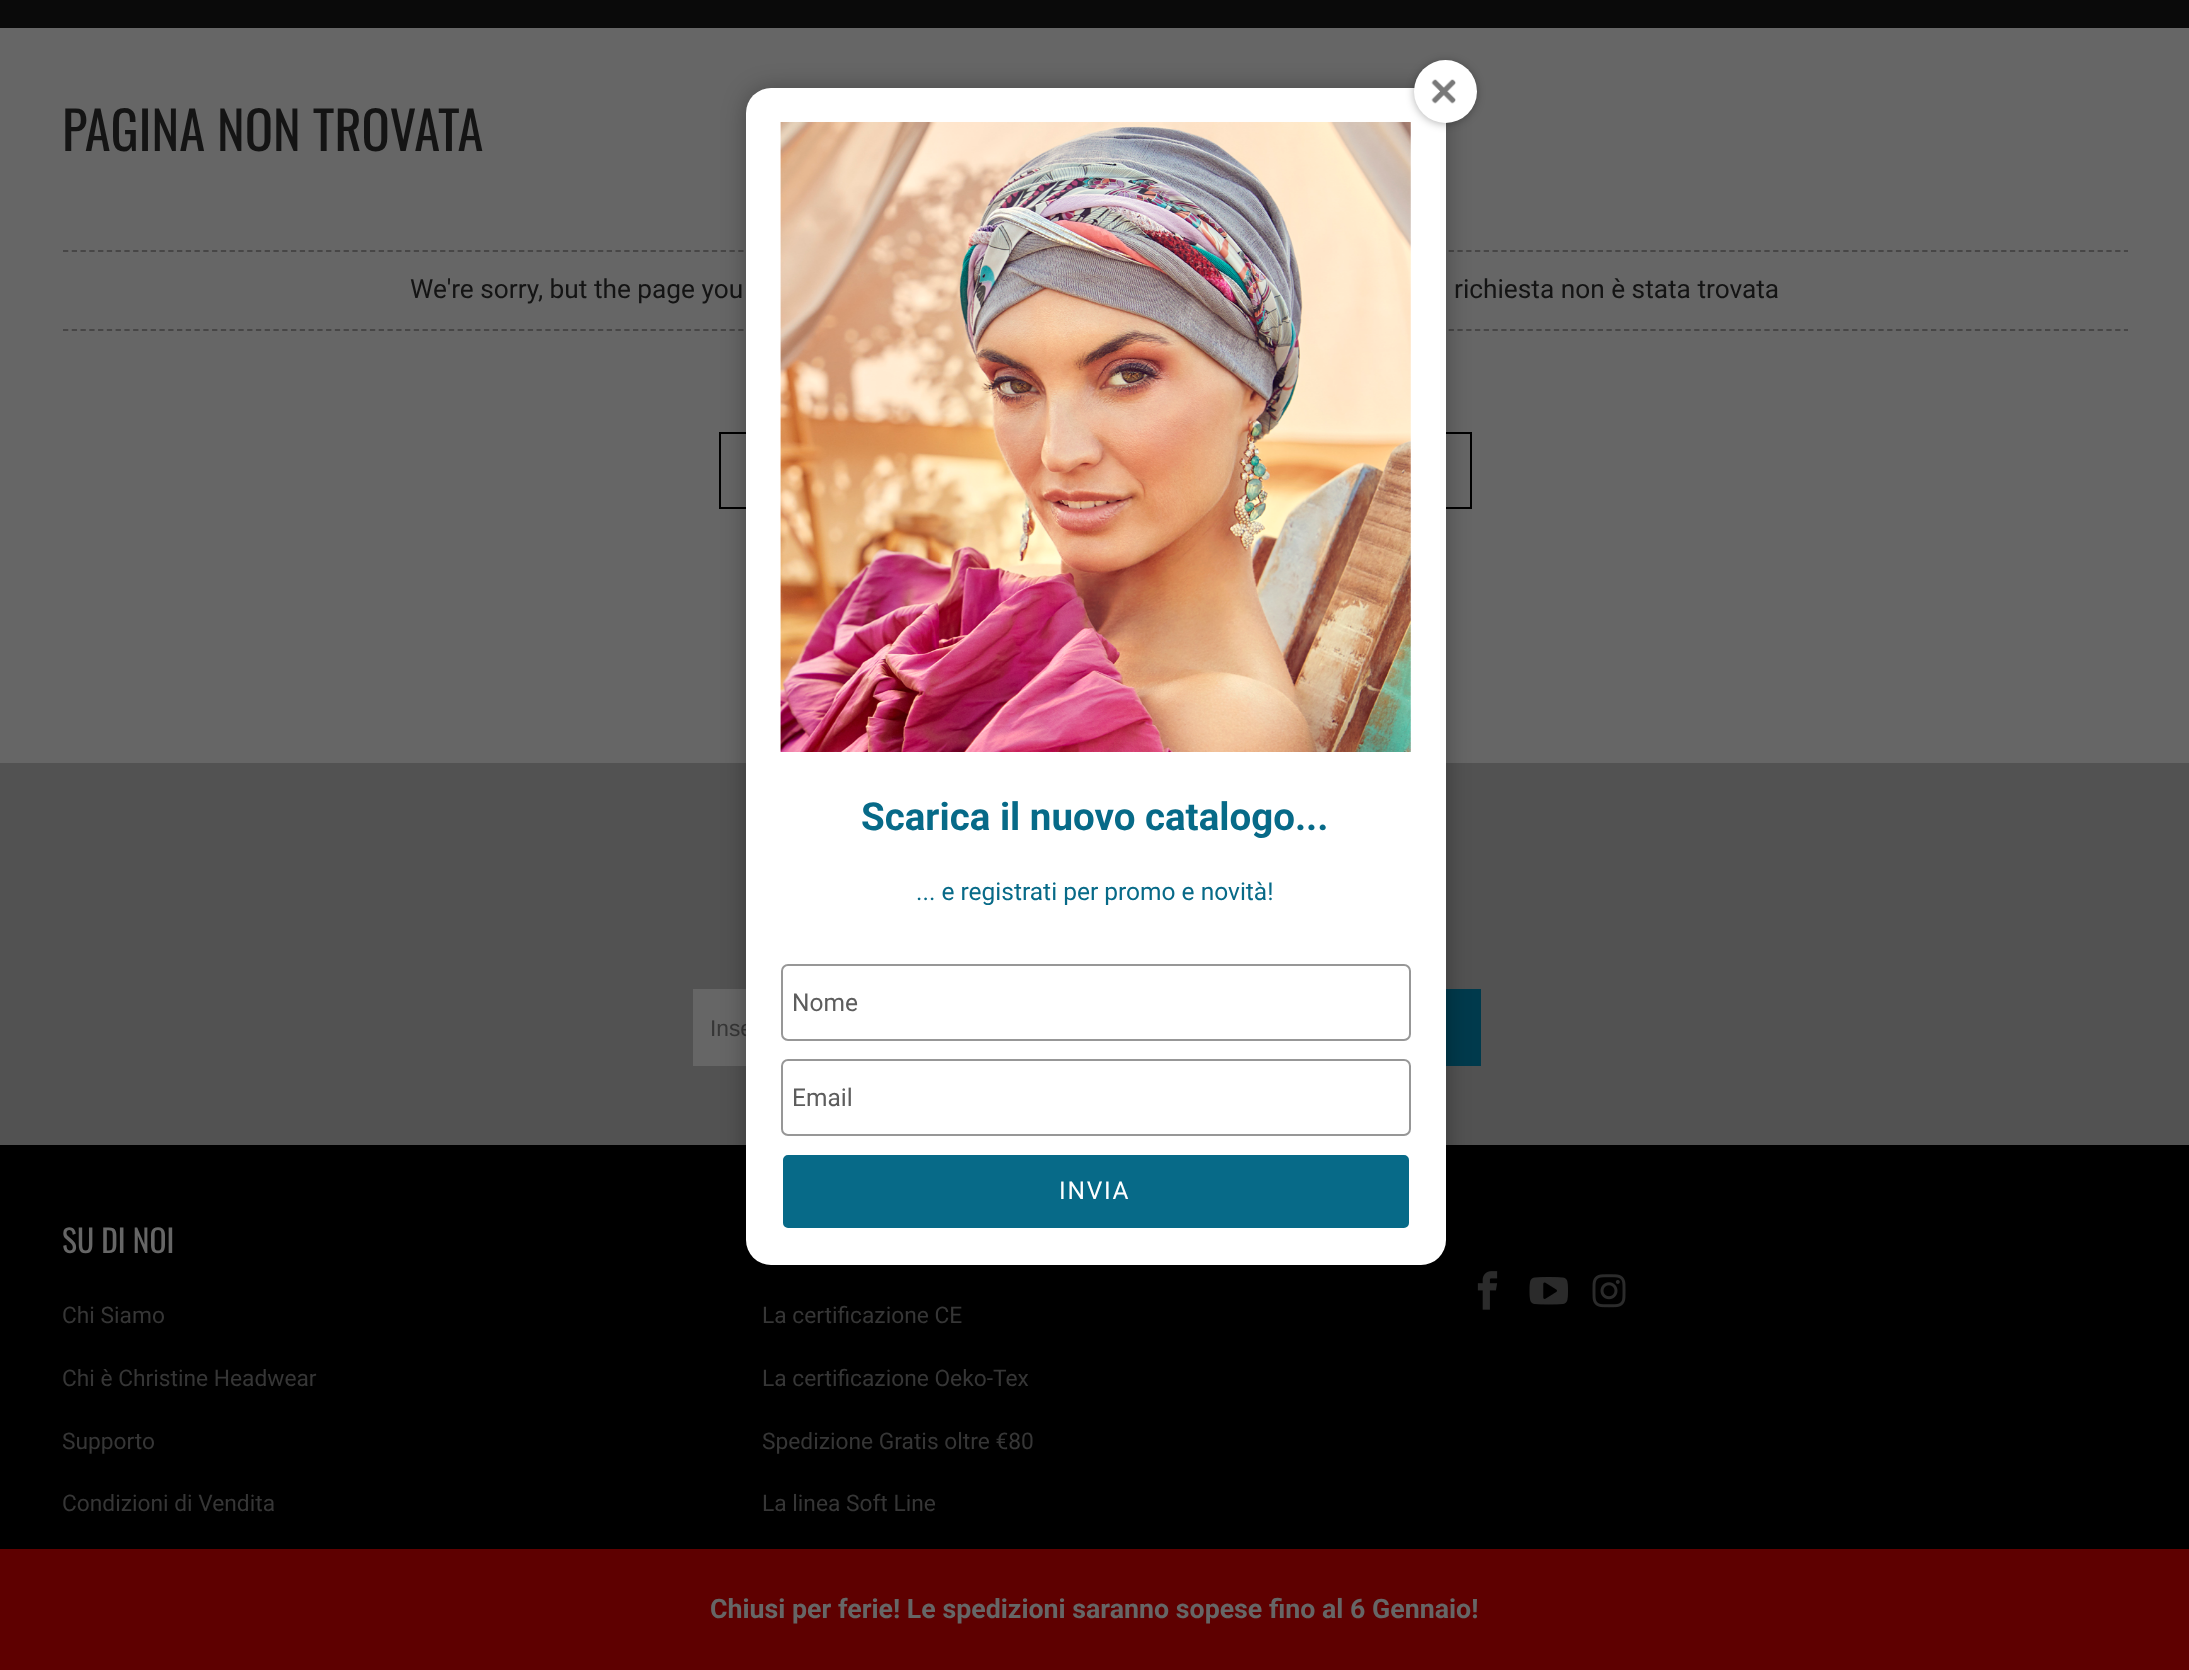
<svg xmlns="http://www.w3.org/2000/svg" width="2189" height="1670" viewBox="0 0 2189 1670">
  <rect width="100%" height="100%" fill="rgb(102,102,102)"/>
  <rect x="0" y="0" width="2189" height="28" fill="rgb(10,10,10)"/>
  <text x="62" y="151" font-family="Oswald" font-size="52.5" fill="rgb(20,20,20)">PAGINA NON TROVATA</text>
  <path d="M63 251H2128" fill="none" stroke="rgb(71,70,70)" stroke-width="1.8" stroke-dasharray="5.25 3.52"/>
  <path d="M63 330H2128" fill="none" stroke="rgb(71,70,70)" stroke-width="1.8" stroke-dasharray="5.25 3.52"/>
  <g font-family="Roboto" font-size="26.25" fill="rgb(20,20,20)">
    <text x="410" y="298">We're sorry, but the page you</text>
    <text x="1454" y="298">richiesta non è stata trovata</text>
  </g>
  <rect x="720" y="433" width="751" height="75" fill="none" stroke="rgb(0,0,0)" stroke-width="2"/>
  <rect x="0" y="763" width="2189" height="382" fill="rgb(82,82,82)"/>
  <rect x="693" y="989" width="53" height="77" fill="rgb(102,102,102)"/>
  <text x="710" y="1036" font-family="Liberation Sans" font-size="22.75" fill="rgb(54,54,54)">Inse</text>
  <rect x="1446" y="989" width="35" height="77" fill="rgb(0,58,76)"/>
  <rect x="0" y="1145" width="2189" height="404" fill="rgb(0,0,0)"/>
  <image x="1477" y="1271" width="21" height="39" href="pic3.png"/>
  <rect x="746" y="89" width="700" height="1178" rx="25" fill="rgba(0,0,0,0.3)" filter="blur(11.5px)"/>
  <rect x="746" y="88" width="700" height="1177" rx="25" fill="rgb(255,255,255)"/>
  <image x="780" y="122" width="631" height="630" href="pic2.png"/>
  <rect x="1414" y="61" width="63" height="63" rx="31.5" fill="rgba(0,0,0,0.3)" filter="blur(4.5px)"/>
  <circle cx="1445.5" cy="91.5" r="31.5" fill="rgb(255,255,255)"/>
  <image x="1431" y="79" width="25" height="25" href="pic1.png"/>
  <text x="861" y="830" font-family="Roboto" font-size="38.5" font-weight="bold" fill="rgb(7,106,136)">Scarica il nuovo catalogo...</text>
  <text x="916" y="900" font-family="Roboto" font-size="24.5" fill="rgb(7,106,136)">... e registrati per promo e novità!</text>
  <rect x="782" y="965" width="628" height="75" rx="6" fill="none" stroke="rgb(151,151,151)" stroke-width="2"/>
  <text x="792" y="1011" font-family="Roboto" font-size="24.5" fill="rgb(93,93,93)">Nome</text>
  <rect x="782" y="1060" width="628" height="75" rx="6" fill="none" stroke="rgb(151,151,151)" stroke-width="2"/>
  <text x="792" y="1106" font-family="Roboto" font-size="24.5" fill="rgb(93,93,93)">Email</text>
  <rect x="782" y="1154" width="628" height="75" rx="6" fill="rgb(7,106,136)" stroke="rgb(255,255,255)" stroke-width="2"/>
  <text x="1059" y="1199" font-family="Roboto" font-size="24.5" letter-spacing="1.75" fill="rgb(255,255,255)">INVIA</text>
  <text x="62" y="1253" font-family="Oswald" font-size="31.5" fill="rgb(102,102,102)">SU DI NOI</text>
  <g font-family="Roboto" font-size="22.75" fill="rgb(54,54,54)">
    <text x="62" y="1323">Chi Siamo</text>
    <text x="62" y="1386">Chi è Christine Headwear</text>
    <text x="62" y="1449">Supporto</text>
    <text x="62" y="1511">Condizioni di Vendita</text>
  </g>
  <image x="1529" y="1277" width="39" height="28" href="pic4.png"/>
  <image x="1592" y="1274" width="34" height="34" href="pic5.png"/>
  <g font-family="Roboto" font-size="22.75" fill="rgb(54,54,54)">
    <text x="762" y="1323">La certificazione CE</text>
    <text x="762" y="1386">La certificazione Oeko-Tex</text>
    <text x="762" y="1449">Spedizione Gratis oltre €80</text>
    <text x="762" y="1511">La linea Soft Line</text>
  </g>
  <rect x="0" y="1549" width="2189" height="121" fill="rgb(94,0,0)"/>
  <text x="710" y="1618" font-family="Roboto" font-size="26.75" font-weight="bold" fill="rgb(102,102,102)">Chiusi per ferie! Le spedizioni saranno sopese fino al 6 Gennaio!</text>
</svg>
